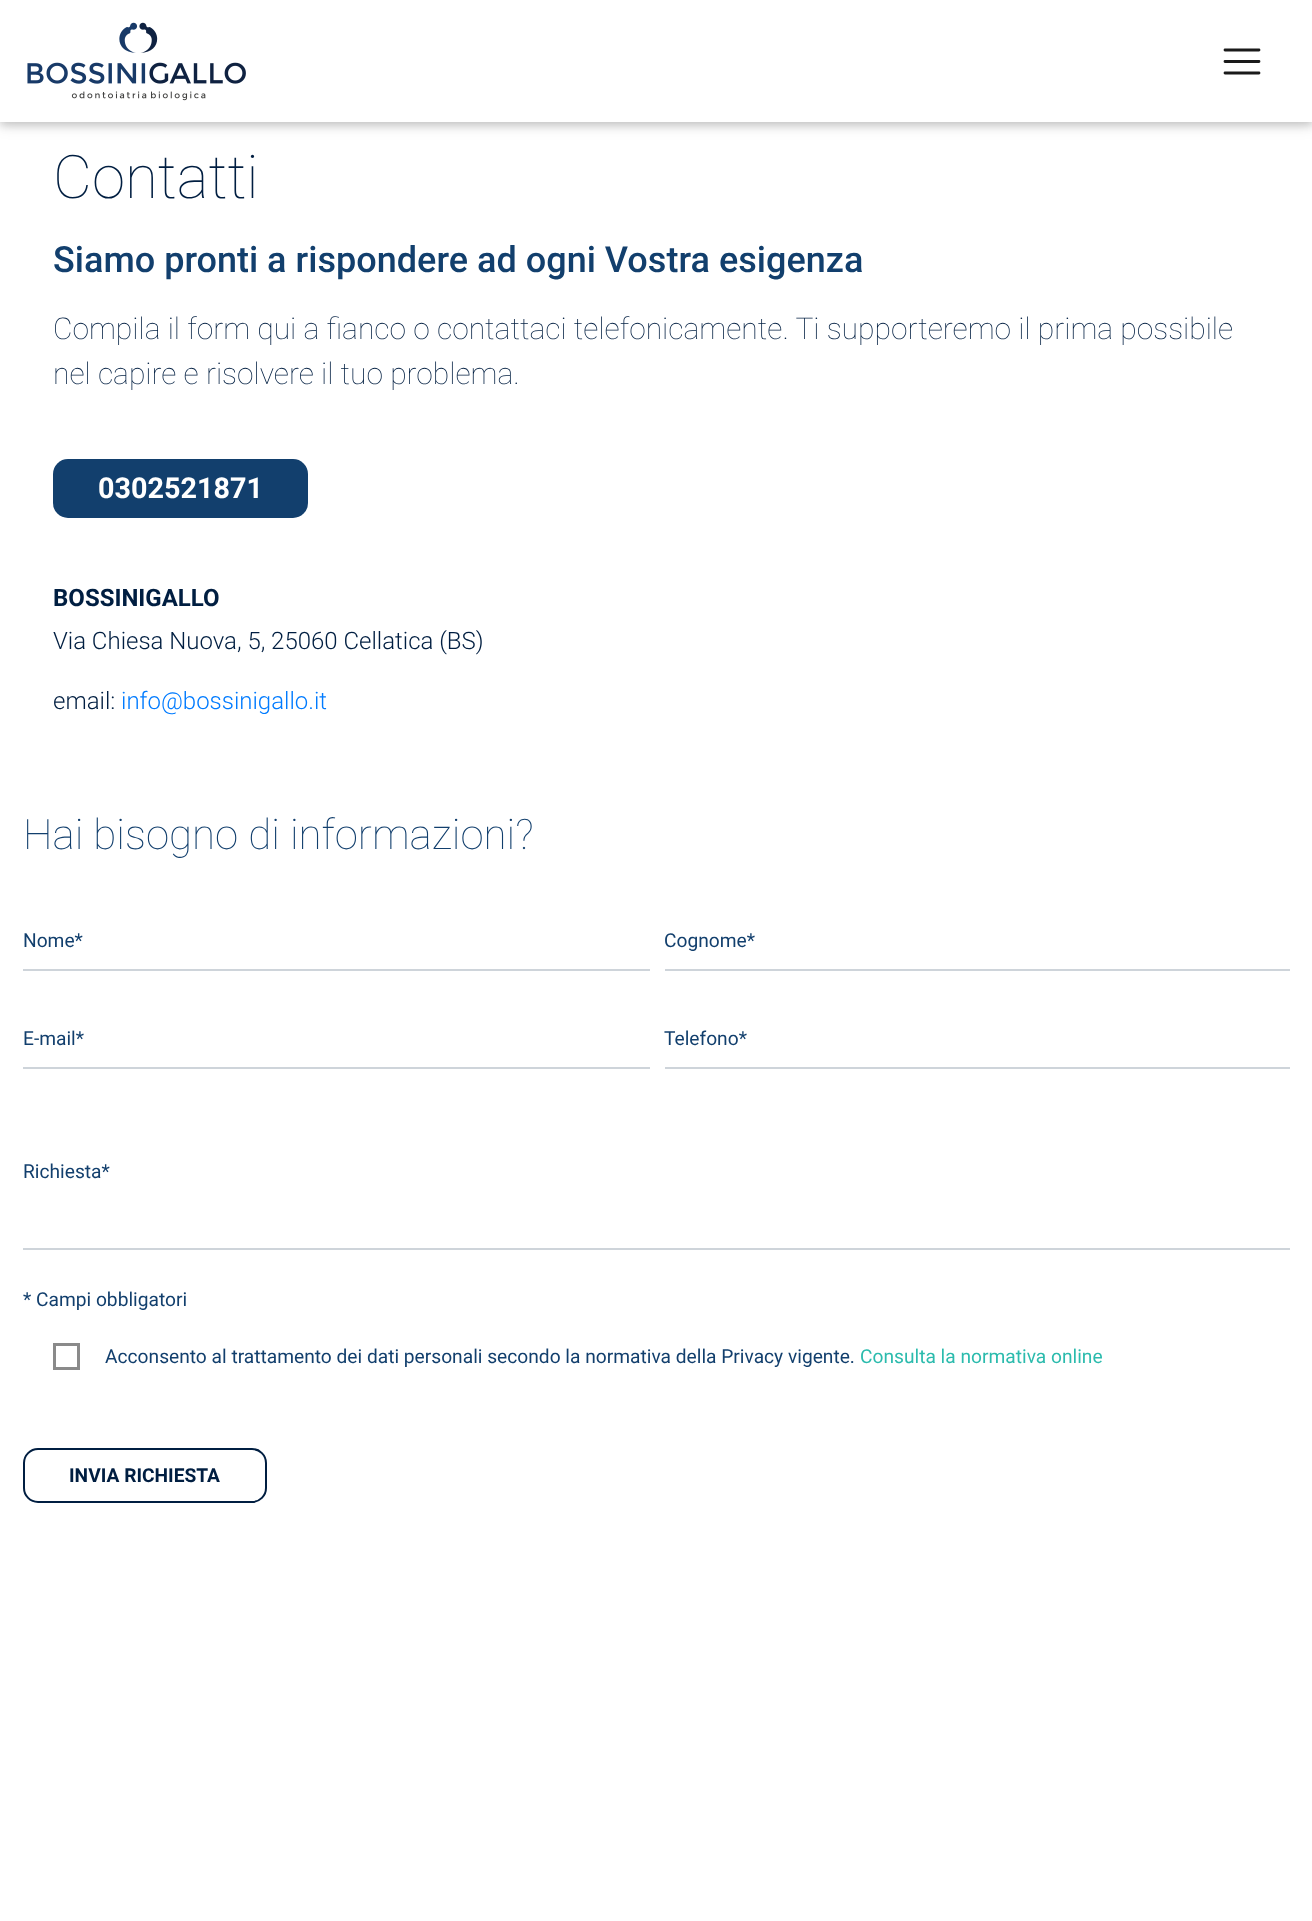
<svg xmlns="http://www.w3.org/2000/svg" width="1312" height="1921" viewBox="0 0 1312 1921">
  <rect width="100%" height="100%" fill="rgb(255,255,255)"/>
  <rect x="0" y="3" width="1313" height="122" fill="rgba(0,0,0,0.12)" filter="blur(7.5px)"/>
  <rect x="0" y="3" width="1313" height="122" fill="rgba(0,0,0,0.16)" filter="blur(4px)"/>
  <rect x="0" y="0" width="1312" height="122" fill="rgb(255,255,255)"/>
  <image x="27" y="22" width="219" height="79" href="pic1.png"/>
  <path d="M1225 50H1259M1225 61.5H1259M1225 73H1259" fill="none" stroke="rgb(26,26,26)" stroke-width="2.8" stroke-linecap="round"/>
  <text x="53" y="198" font-family="Roboto" font-size="60" font-weight="100" fill="rgb(0,30,65)">Contatti</text>
  <text x="53" y="272" font-family="Roboto" font-size="36" font-weight="500" fill="rgb(18,63,109)">Siamo pronti a rispondere ad ogni Vostra esigenza</text>
  <g font-family="Roboto" font-size="30" font-weight="100" fill="rgb(0,30,65)">
    <text>
      <tspan x="53" y="339">Compila il form qui a fianco o contattaci telefonicamente. Ti supporteremo il prima possibile</tspan>
      <tspan x="53" y="384">nel capire e risolvere il tuo problema.</tspan>
    </text>
  </g>
  <rect x="53" y="459" width="255" height="59" rx="15" fill="rgb(18,63,109)"/>
  <text x="98" y="498" font-family="Roboto" font-size="28.75" font-weight="bold" fill="rgb(255,255,255)">0302521871</text>
  <text x="53" y="606" font-family="Roboto" font-size="24" font-weight="bold" fill="rgb(0,30,65)">BOSSINIGALLO</text>
  <g font-family="Roboto" font-size="24" font-weight="300" fill="rgb(0,30,65)">
    <text x="53" y="649">Via Chiesa Nuova, 5, 25060 Cellatica (BS)</text>
    <text x="53" y="709">email:</text>
  </g>
  <text x="121" y="709" font-family="Roboto" font-size="24" font-weight="300" fill="rgb(0,123,255)">info@bossinigallo.it</text>
  <text x="23" y="849" font-family="Roboto" font-size="42" font-weight="100" fill="rgb(18,63,109)">Hai bisogno di informazioni?</text>
  <text x="23" y="947" font-family="Roboto" font-size="19.2" fill="rgb(18,63,109)">Nome*</text>
  <rect x="23" y="969" width="627" height="2" fill="rgb(206,212,218)"/>
  <text x="23" y="1045" font-family="Roboto" font-size="19.2" fill="rgb(18,63,109)">E-mail*</text>
  <rect x="23" y="1067" width="627" height="2" fill="rgb(206,212,218)"/>
  <text x="664" y="947" font-family="Roboto" font-size="19.2" fill="rgb(18,63,109)">Cognome*</text>
  <rect x="665" y="969" width="625" height="2" fill="rgb(206,212,218)"/>
  <text x="664" y="1045" font-family="Roboto" font-size="19.2" fill="rgb(18,63,109)">Telefono*</text>
  <rect x="665" y="1067" width="625" height="2" fill="rgb(206,212,218)"/>
  <text x="23" y="1178" font-family="Roboto" font-size="19.2" fill="rgb(18,63,109)">Richiesta*</text>
  <rect x="23" y="1248" width="1267" height="2" fill="rgb(206,212,218)"/>
  <text x="23" y="1306" font-family="Roboto" font-size="19.2" fill="rgb(18,63,109)">* Campi obbligatori</text>
  <rect x="54.5" y="1344.5" width="24" height="24" fill="none" stroke="rgb(138,138,138)" stroke-width="3"/>
  <text x="105" y="1363" font-family="Roboto" font-size="19.2" fill="rgb(18,63,109)">Acconsento al trattamento dei dati personali secondo la normativa della Privacy vigente.</text>
  <text x="860" y="1363" font-family="Roboto" font-size="19.2" fill="rgb(43,187,173)">Consulta la normativa online</text>
  <rect x="24" y="1449" width="242" height="53" rx="14" fill="none" stroke="rgb(0,30,65)" stroke-width="2"/>
  <text x="69" y="1482" font-family="Roboto" font-size="19.2" font-weight="bold" fill="rgb(0,30,65)">INVIA RICHIESTA</text>
</svg>
